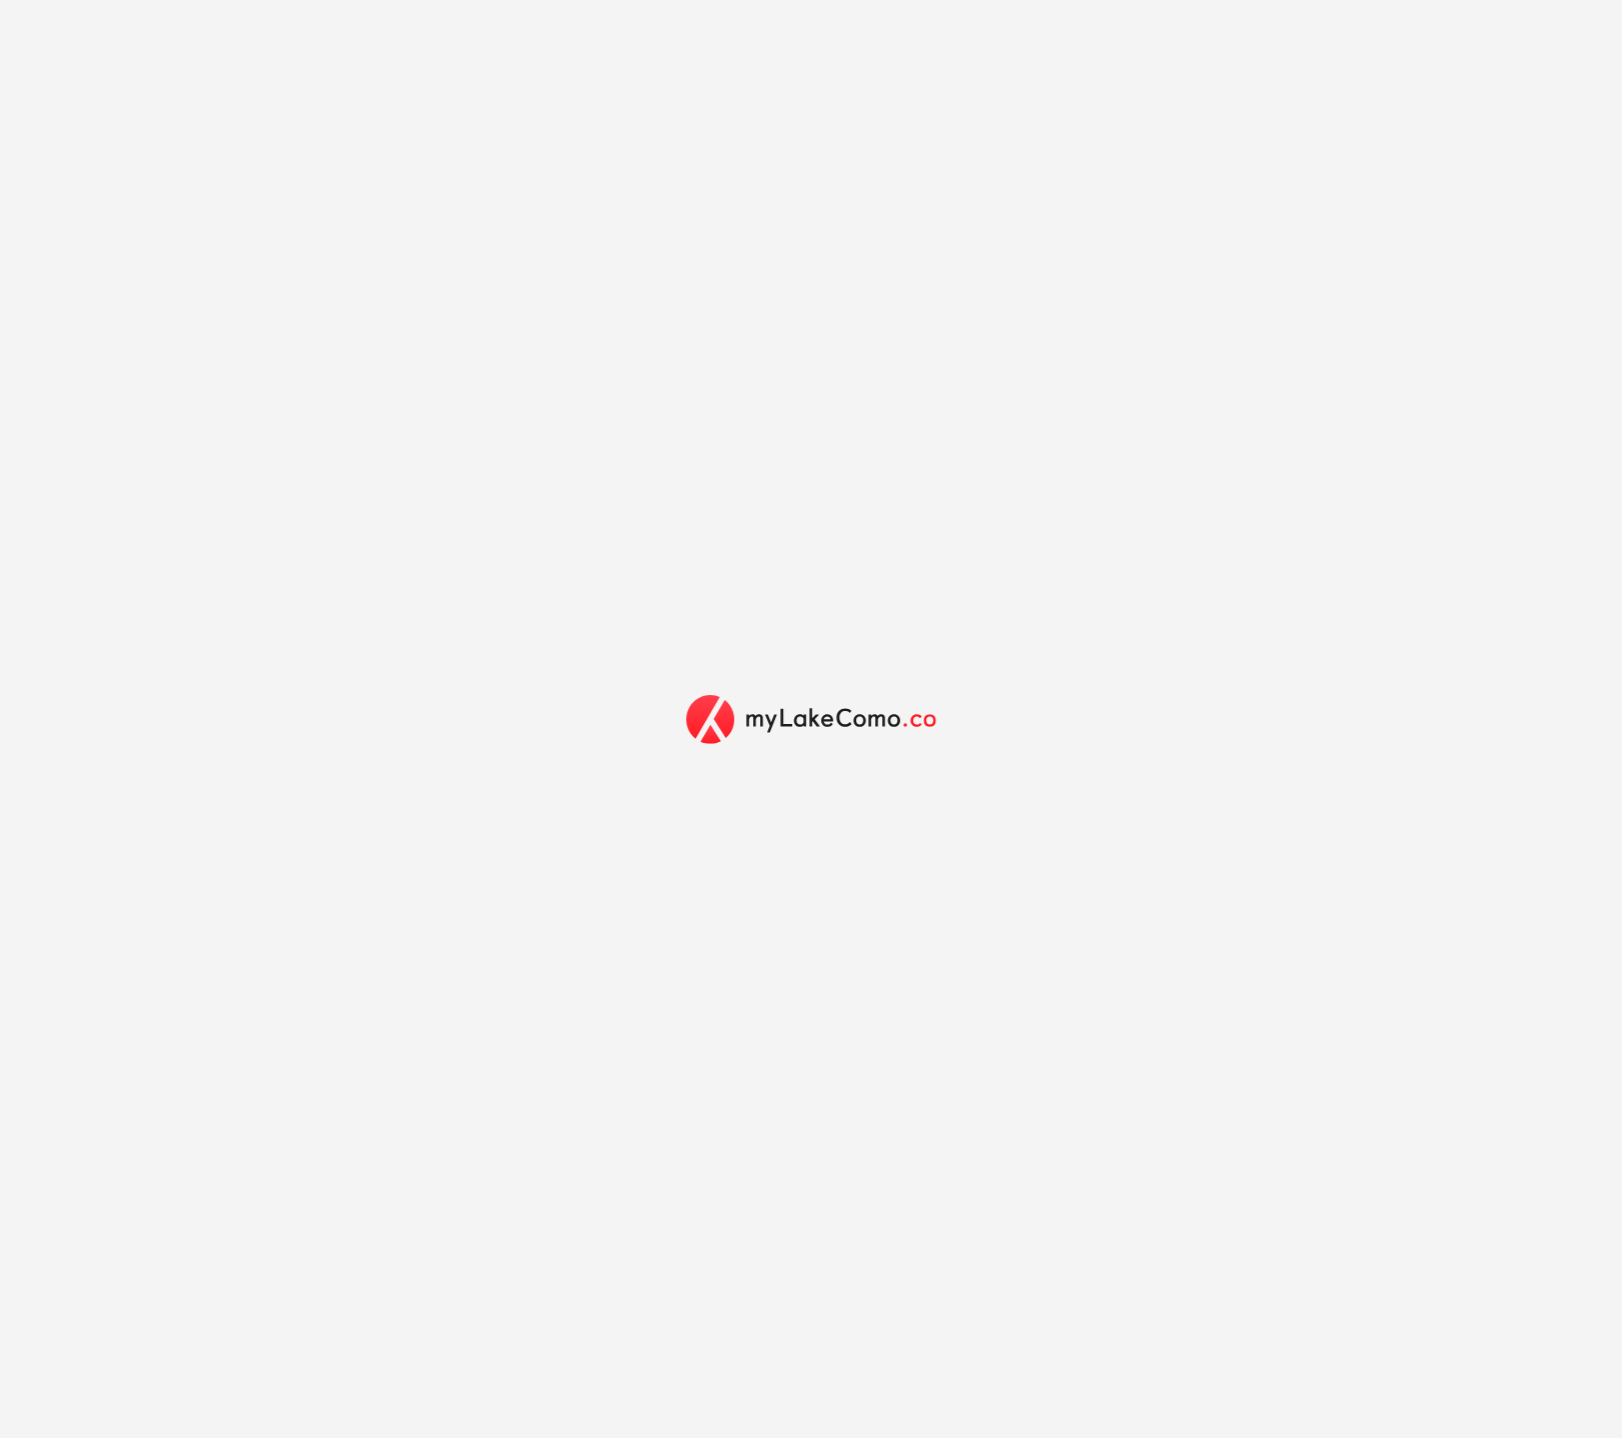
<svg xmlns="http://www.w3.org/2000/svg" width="1622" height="1438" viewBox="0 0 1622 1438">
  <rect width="100%" height="100%" fill="rgb(244,244,244)"/>
  <image x="686" y="695" width="251" height="49" href="pic1.png"/>
</svg>
